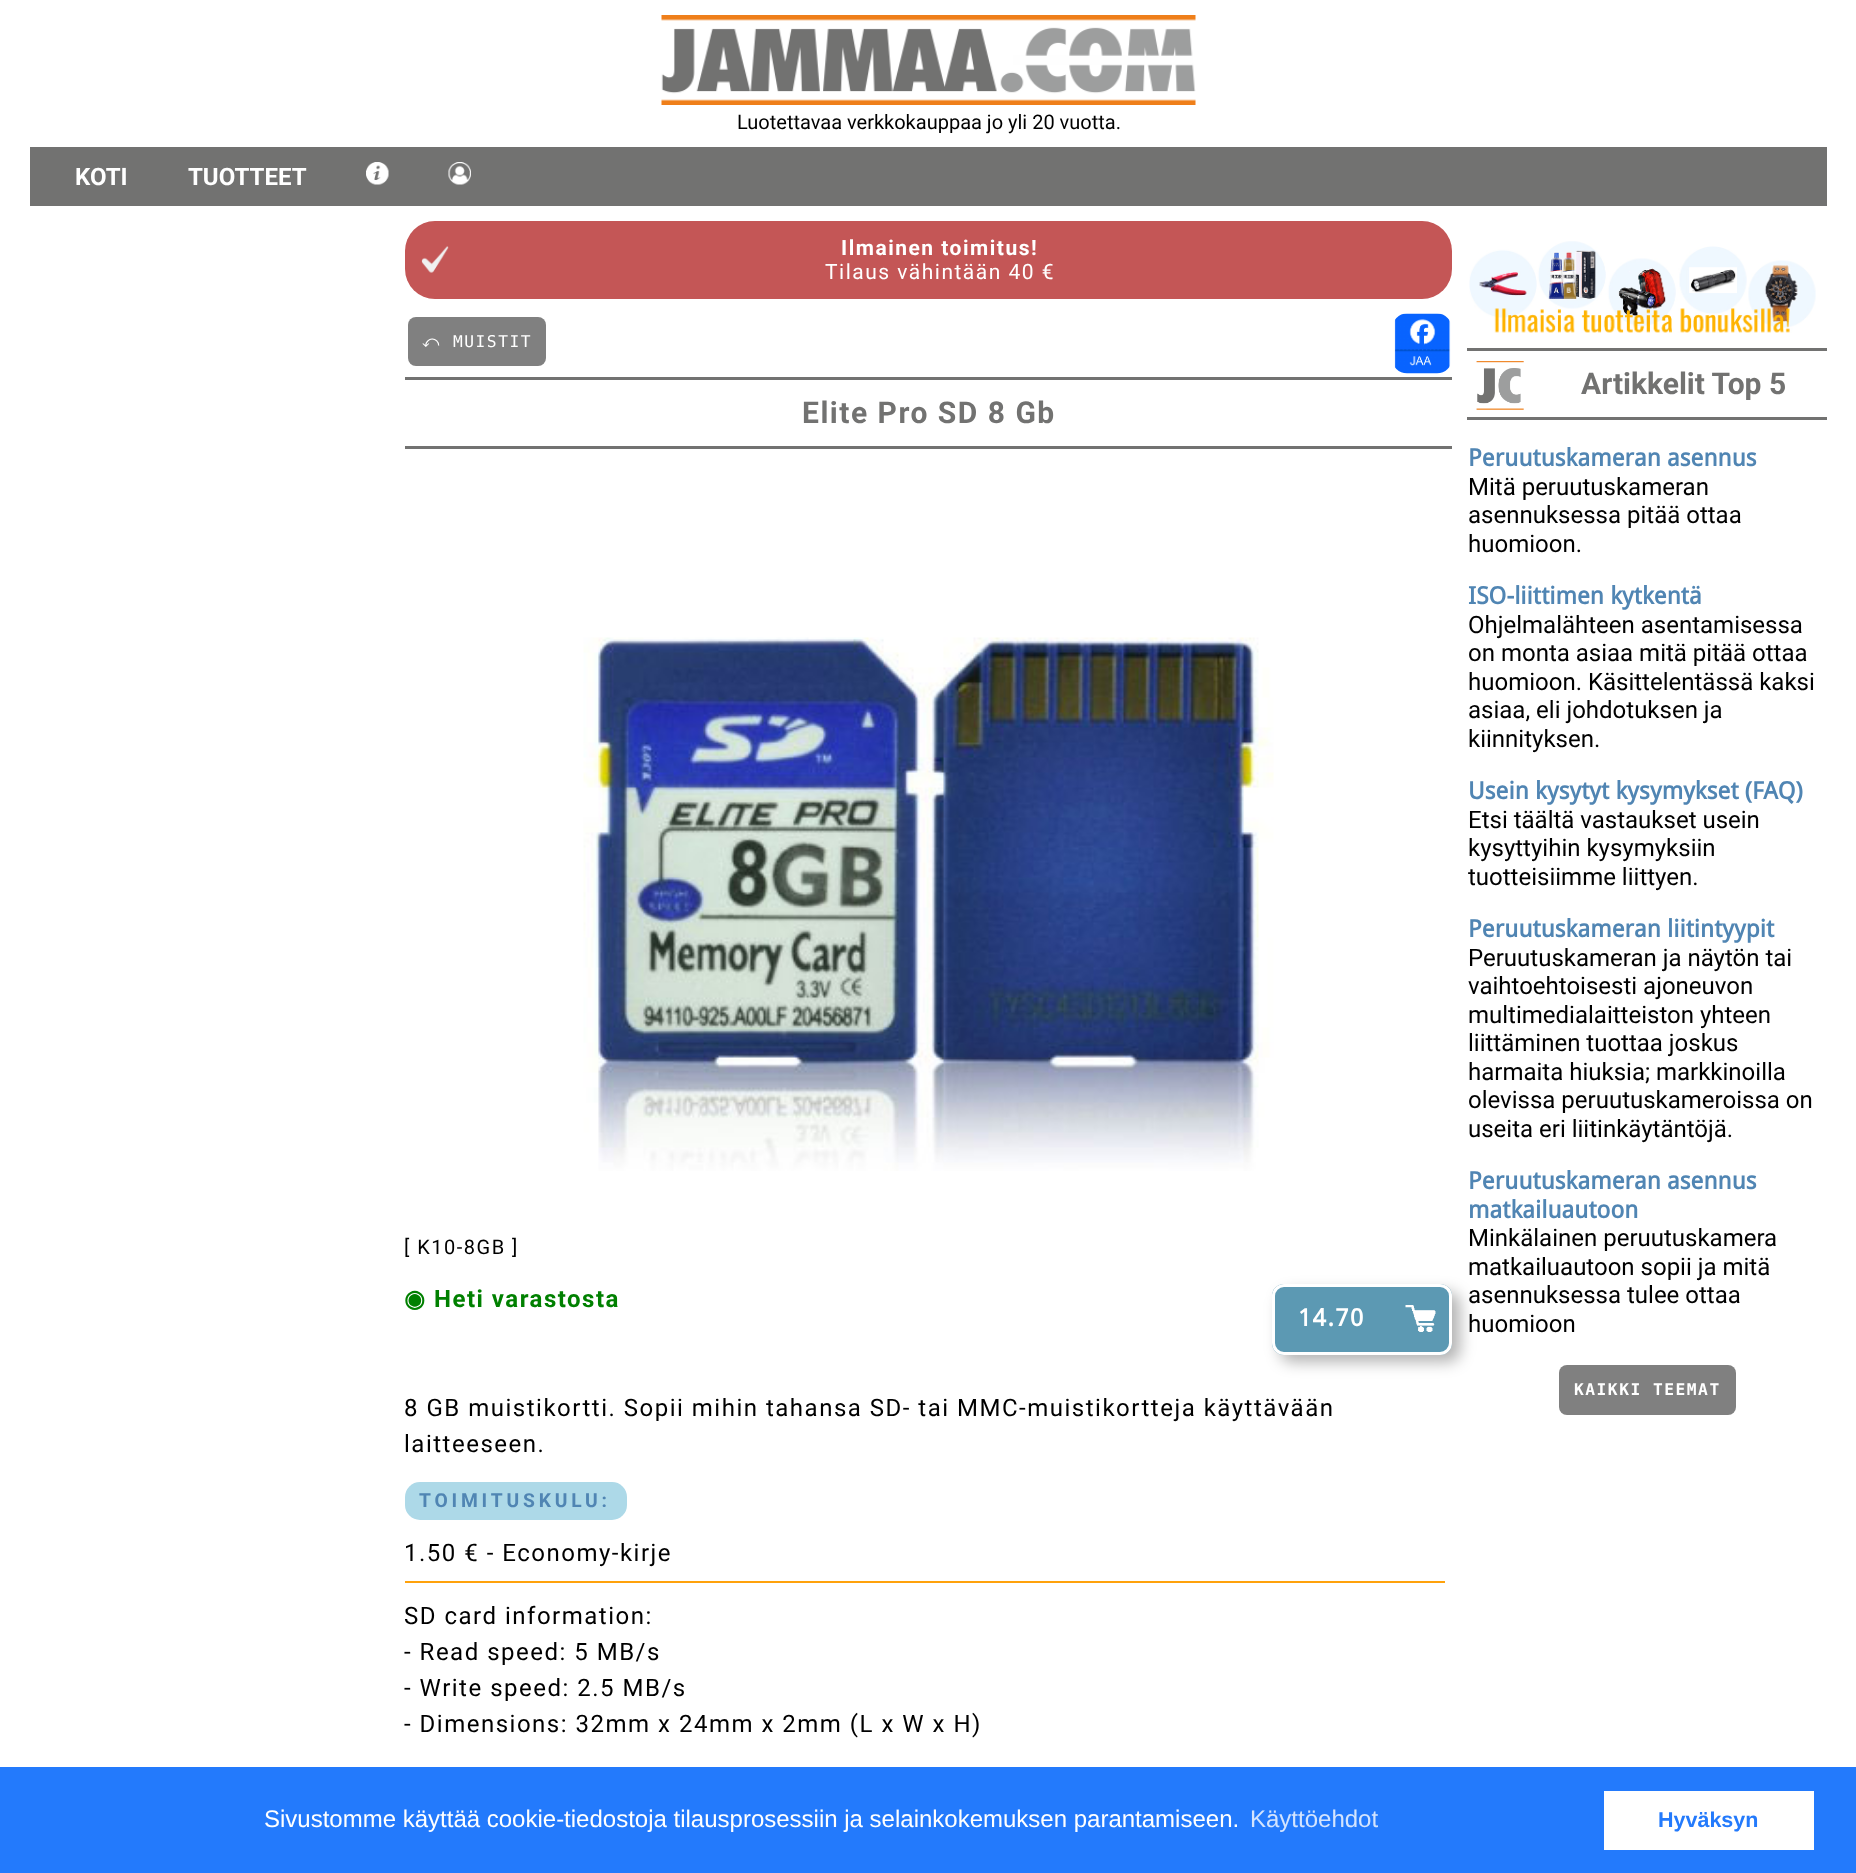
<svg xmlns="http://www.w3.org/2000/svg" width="1856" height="1873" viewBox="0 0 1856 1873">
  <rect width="100%" height="100%" fill="rgb(255,255,255)"/>
  <image x="661" y="15" width="535" height="90" href="pic1.png"/>
  <text x="737" y="129" font-family="Roboto" font-size="20" fill="rgb(0,0,0)">Luotettavaa verkkokauppaa jo yli 20 vuotta.</text>
  <rect x="30" y="147" width="1797" height="59" fill="rgb(114,114,113)"/>
  <g font-family="Roboto" font-size="24" font-weight="bold" fill="rgb(255,255,255)">
    <text x="75" y="185">KOTI</text>
    <text x="188" y="185">TUOTTEET</text>
  </g>
  <image x="366" y="162" width="23" height="23" href="pic2.png"/>
  <image x="448" y="162" width="23" height="23" href="pic3.png"/>
  <rect x="405" y="221" width="1047" height="78" rx="30" fill="rgb(196,86,86)"/>
  <image x="421" y="246" width="28" height="27" href="pic4.png"/>
  <text x="841" y="255" font-family="Roboto" font-size="21" font-weight="bold" letter-spacing="1.5" fill="rgb(255,255,255)">Ilmainen toimitus!</text>
  <text x="825" y="279" font-family="Roboto" font-size="21" letter-spacing="1.5" fill="rgb(255,255,255)">Tilaus vähintään 40 €</text>
  <rect x="408" y="317" width="138" height="49" rx="8" fill="rgb(128,128,128)"/>
  <text x="422" y="347" font-family="FreeSerif" font-size="16.25" letter-spacing="1.5" fill="rgb(255,255,255)">⤺</text>
  <text x="453" y="347" font-family="DejaVu Sans Mono" font-size="16.25" letter-spacing="1.5" fill="rgb(255,255,255)">MUISTIT</text>
  <image x="1394" y="313" width="57" height="61" href="pic5.png"/>
  <rect x="405" y="377" width="1047" height="3" fill="rgb(114,114,113)"/>
  <rect x="405" y="446" width="1047" height="3" fill="rgb(114,114,113)"/>
  <text x="802" y="423" font-family="Roboto" font-size="30" font-weight="bold" letter-spacing="1.5" fill="rgb(114,114,113)">Elite Pro SD 8 Gb</text>
  <image x="583" y="637" width="691" height="534" href="pic6.png"/>
  <text x="404" y="1254" font-family="Roboto" font-size="20" letter-spacing="1.5" fill="rgb(0,0,0)">[ K10-8GB ]</text>
  <text x="404" y="1307" font-family="DejaVu Sans" font-size="24" font-weight="bold" letter-spacing="1.5" fill="rgb(0,128,0)">◉</text>
  <text x="434" y="1307" font-family="Roboto" font-size="24" font-weight="bold" letter-spacing="1.5" fill="rgb(0,128,0)">Heti varastosta</text>
  <rect x="1280" y="1292" width="180" height="70" rx="12" fill="rgba(0,0,0,0.3)" filter="blur(7.5px)"/>
  <rect x="1272" y="1284" width="180" height="71" rx="12" fill="rgb(92,153,179)"/>
  <image x="1405" y="1305" width="31" height="27" href="pic7.png"/>
  <rect x="1273.5" y="1285.5" width="177" height="68" rx="10.5" fill="none" stroke="rgb(255,255,255)" stroke-width="3"/>
  <text x="1298" y="1326" font-family="Droid Sans" font-size="24" font-weight="bold" letter-spacing="1.5" fill="rgb(255,255,255)">14.70</text>
  <g font-family="Roboto" font-size="24" letter-spacing="1.5" fill="rgb(0,0,0)">
    <text>
      <tspan x="404" y="1416">8 GB muistikortti. Sopii mihin tahansa SD- tai MMC-muistikortteja käyttävään</tspan>
      <tspan x="404" y="1452">laitteeseen.</tspan>
    </text>
  </g>
  <rect x="405" y="1482" width="222" height="38" rx="15" fill="rgb(173,217,232)"/>
  <text x="419" y="1507" font-family="Roboto" font-size="19.25" font-weight="bold" letter-spacing="3.8" fill="rgb(80,133,179)">TOIMITUSKULU:</text>
  <text x="404" y="1561" font-family="Roboto" font-size="24" letter-spacing="1.5" fill="rgb(0,0,0)">1.50 € - Economy-kirje</text>
  <rect x="405" y="1581" width="1040" height="2" fill="rgb(255,162,12)"/>
  <g font-family="Roboto" font-size="24" letter-spacing="1.5" fill="rgb(0,0,0)">
    <text>
      <tspan x="404" y="1624">SD card information:</tspan>
      <tspan x="404" y="1660">- Read speed: 5 MB/s</tspan>
      <tspan x="404" y="1696">- Write speed: 2.5 MB/s</tspan>
      <tspan x="404" y="1732">- Dimensions: 32mm x 24mm x 2mm (L x W x H)</tspan>
    </text>
  </g>
  <image x="1469" y="241" width="347" height="92" href="pic8.png"/>
  <image x="1476" y="361" width="48" height="49" href="pic9.png"/>
  <rect x="1467" y="348" width="360" height="3" fill="rgb(114,114,113)"/>
  <rect x="1467" y="417" width="360" height="3" fill="rgb(114,114,113)"/>
  <text x="1581" y="394" font-family="Roboto" font-size="30" font-weight="bold" fill="rgb(114,114,113)">Artikkelit Top 5</text>
  <text x="1468" y="466" font-family="Droid Sans" font-size="24" font-weight="bold" fill="rgb(80,133,179)">Peruutuskameran asennus</text>
  <g font-family="Roboto" font-size="24" fill="rgb(0,0,0)">
    <text>
      <tspan x="1468" y="495">Mitä peruutuskameran</tspan>
      <tspan x="1468" y="523">asennuksessa pitää ottaa</tspan>
      <tspan x="1468" y="552">huomioon.</tspan>
    </text>
  </g>
  <text x="1468" y="604" font-family="Droid Sans" font-size="24" font-weight="bold" fill="rgb(80,133,179)">ISO-liittimen kytkentä</text>
  <g font-family="Roboto" font-size="24" fill="rgb(0,0,0)">
    <text>
      <tspan x="1468" y="633">Ohjelmalähteen asentamisessa</tspan>
      <tspan x="1468" y="661">on monta asiaa mitä pitää ottaa</tspan>
      <tspan x="1468" y="690">huomioon. Käsittelentässä kaksi</tspan>
      <tspan x="1468" y="718">asiaa, eli johdotuksen ja</tspan>
      <tspan x="1468" y="747">kiinnityksen.</tspan>
    </text>
  </g>
  <text x="1468" y="799" font-family="Droid Sans" font-size="24" font-weight="bold" fill="rgb(80,133,179)">Usein kysytyt kysymykset (FAQ)</text>
  <g font-family="Roboto" font-size="24" fill="rgb(0,0,0)">
    <text>
      <tspan x="1468" y="828">Etsi täältä vastaukset usein</tspan>
      <tspan x="1468" y="856">kysyttyihin kysymyksiin</tspan>
      <tspan x="1468" y="885">tuotteisiimme liittyen.</tspan>
    </text>
  </g>
  <text x="1468" y="937" font-family="Droid Sans" font-size="24" font-weight="bold" fill="rgb(80,133,179)">Peruutuskameran liitintyypit</text>
  <g font-family="Roboto" font-size="24" fill="rgb(0,0,0)">
    <text>
      <tspan x="1468" y="966">Peruutuskameran ja näytön tai</tspan>
      <tspan x="1468" y="994">vaihtoehtoisesti ajoneuvon</tspan>
      <tspan x="1468" y="1023">multimedialaitteiston yhteen</tspan>
      <tspan x="1468" y="1051">liittäminen tuottaa joskus</tspan>
      <tspan x="1468" y="1080">harmaita hiuksia; markkinoilla</tspan>
      <tspan x="1468" y="1108">olevissa peruutuskameroissa on</tspan>
      <tspan x="1468" y="1137">useita eri liitinkäytäntöjä.</tspan>
    </text>
  </g>
  <g font-family="Droid Sans" font-size="24" font-weight="bold" fill="rgb(80,133,179)">
    <text>
      <tspan x="1468" y="1189">Peruutuskameran asennus</tspan>
      <tspan x="1468" y="1218">matkailuautoon</tspan>
    </text>
  </g>
  <g font-family="Roboto" font-size="24" fill="rgb(0,0,0)">
    <text>
      <tspan x="1468" y="1246">Minkälainen peruutuskamera</tspan>
      <tspan x="1468" y="1275">matkailuautoon sopii ja mitä</tspan>
      <tspan x="1468" y="1303">asennuksessa tulee ottaa</tspan>
      <tspan x="1468" y="1332">huomioon</tspan>
    </text>
  </g>
  <rect x="1559" y="1365" width="177" height="50" rx="8" fill="rgb(128,128,128)"/>
  <text x="1574" y="1395" font-family="DejaVu Sans Mono" font-size="16.25" font-weight="bold" letter-spacing="1.5" fill="rgb(255,255,255)">KAIKKI TEEMAT</text>
  <rect x="0" y="1767" width="1856" height="106" fill="rgb(35,122,252)"/>
  <text x="264" y="1827" font-family="Liberation Sans" font-size="24" fill="rgb(255,255,255)">Sivustomme käyttää cookie-tiedostoja tilausprosessiin ja selainkokemuksen parantamiseen.</text>
  <text x="1250" y="1827" font-family="Liberation Sans" font-size="24" fill="rgb(211,228,254)">Käyttöehdot</text>
  <rect x="1604" y="1791" width="210" height="59" fill="rgb(255,255,255)"/>
  <text x="1658" y="1827" font-family="Liberation Sans" font-size="21.5" font-weight="bold" fill="rgb(35,122,252)">Hyväksyn</text>
</svg>
